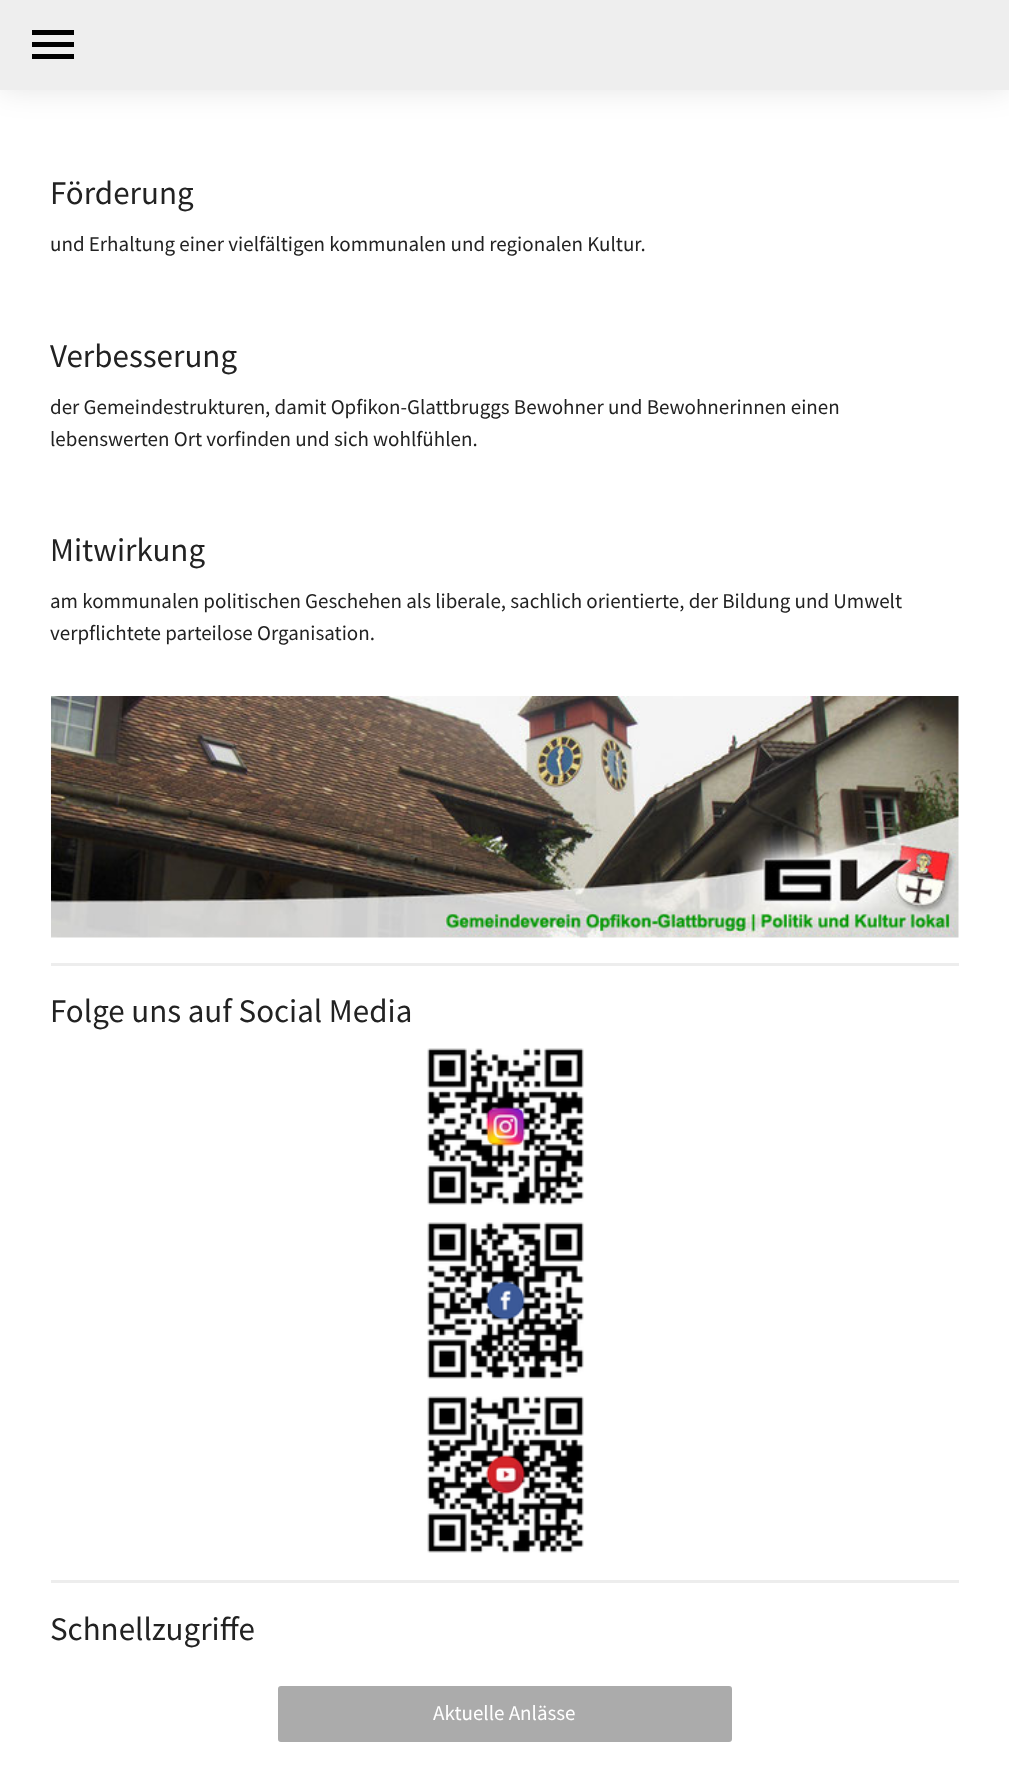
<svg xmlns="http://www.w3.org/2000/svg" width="1009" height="1783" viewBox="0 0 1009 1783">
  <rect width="100%" height="100%" fill="rgb(255,255,255)"/>
  <rect x="0" y="0" width="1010" height="90" fill="rgba(0,0,0,0.1)" filter="blur(15px)"/>
  <rect x="0" y="0" width="1009" height="90" fill="rgb(238,238,238)"/>
  <rect x="32" y="42" width="42" height="5" fill="rgb(0,0,0)"/>
  <rect x="32" y="30" width="42" height="5" fill="rgb(0,0,0)"/>
  <rect x="32" y="54" width="42" height="5" fill="rgb(0,0,0)"/>
  <text x="50" y="204" font-family="Source Sans Pro" font-size="33" fill="rgb(34,34,34)">Förderung</text>
  <text x="50" y="251" font-family="Source Sans Pro" font-size="21" fill="rgb(34,34,34)">und Erhaltung einer vielfältigen kommunalen und regionalen Kultur.</text>
  <text x="50" y="367" font-family="Source Sans Pro" font-size="33" fill="rgb(34,34,34)">Verbesserung</text>
  <g font-family="Source Sans Pro" font-size="21" fill="rgb(34,34,34)">
    <text>
      <tspan x="50" y="414">der Gemeindestrukturen, damit Opfikon-Glattbruggs Bewohner und Bewohnerinnen einen</tspan>
      <tspan x="50" y="446">lebenswerten Ort vorfinden und sich wohlfühlen.</tspan>
    </text>
  </g>
  <text x="50" y="561" font-family="Source Sans Pro" font-size="33" fill="rgb(34,34,34)">Mitwirkung</text>
  <g font-family="Source Sans Pro" font-size="21" fill="rgb(34,34,34)">
    <text>
      <tspan x="50" y="608">am kommunalen politischen Geschehen als liberale, sachlich orientierte, der Bildung und Umwelt</tspan>
      <tspan x="50" y="640">verpflichtete parteilose Organisation.</tspan>
    </text>
  </g>
  <image x="51" y="696" width="908" height="242" href="pic1.png"/>
  <rect x="51" y="963" width="908" height="3" fill="rgb(237,237,237)"/>
  <text x="50" y="1022" font-family="Source Sans Pro" font-size="33" fill="rgb(34,34,34)">Folge uns auf Social Media</text>
  <image x="427" y="1048" width="157" height="157" href="pic2.png"/>
  <image x="427" y="1222" width="157" height="157" href="pic3.png"/>
  <image x="427" y="1396" width="157" height="157" href="pic4.png"/>
  <rect x="51" y="1580" width="908" height="3" fill="rgb(237,237,237)"/>
  <text x="50" y="1640" font-family="Source Sans Pro" font-size="33" fill="rgb(34,34,34)">Schnellzugriffe</text>
  <rect x="279" y="1687" width="452" height="54" rx="2" fill="rgb(171,171,171)" stroke="rgb(171,171,171)" stroke-width="2"/>
  <text x="433" y="1720" font-family="Source Sans Pro" font-size="21" fill="rgb(255,255,255)">Aktuelle Anlässe</text>
</svg>
